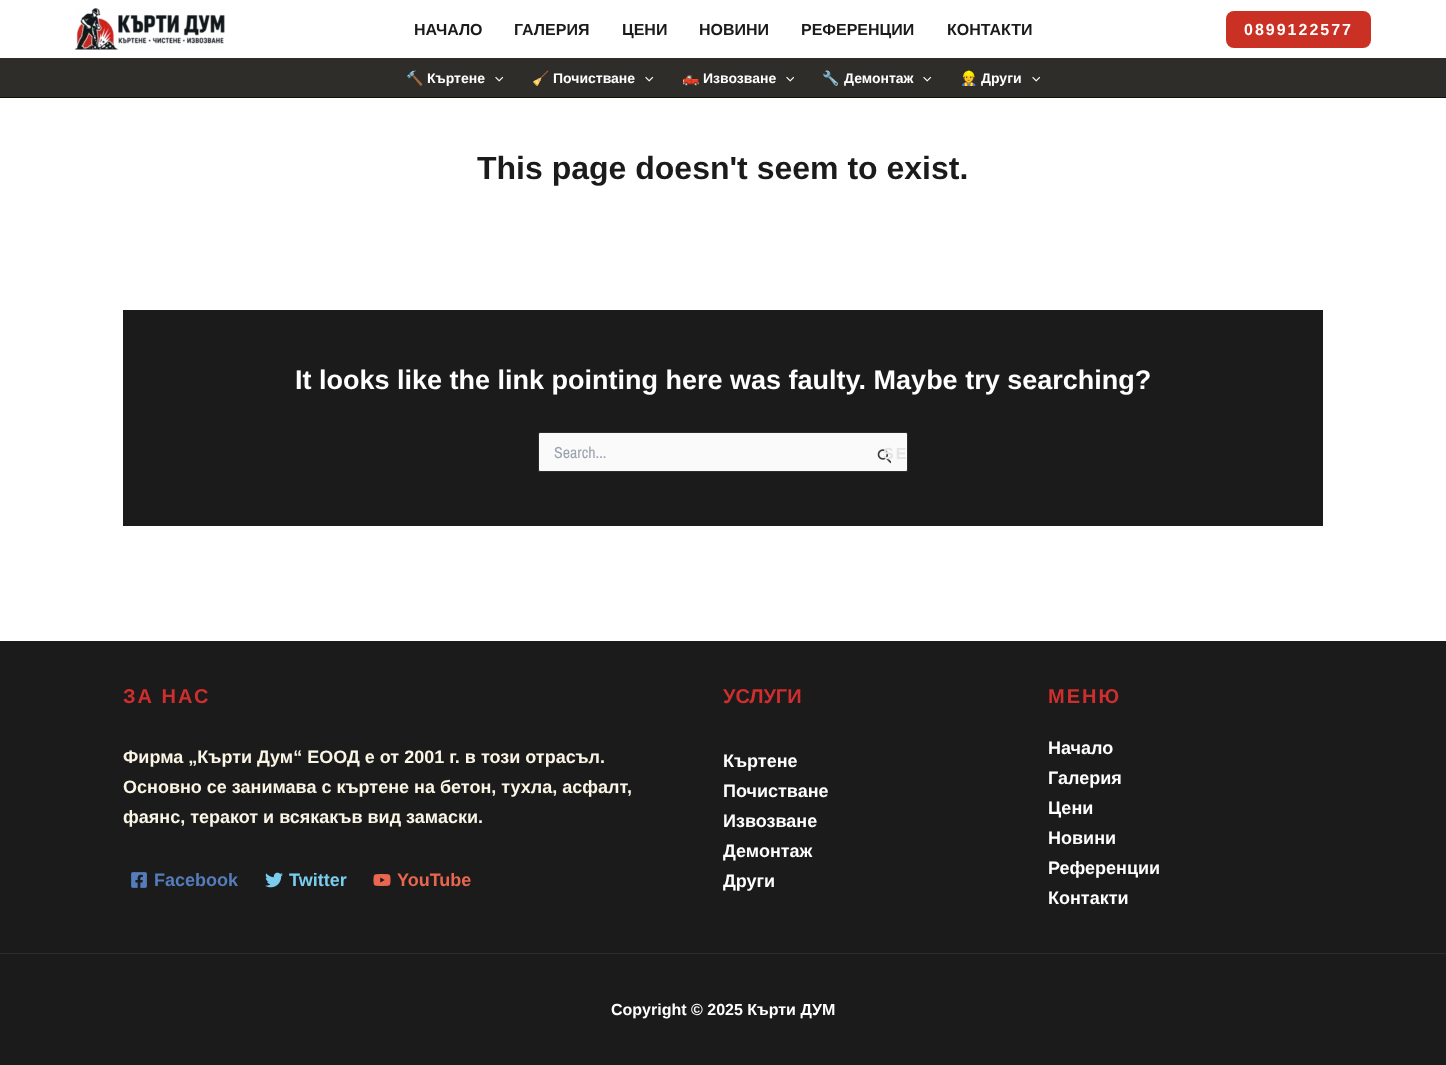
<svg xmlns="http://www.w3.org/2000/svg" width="1446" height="1065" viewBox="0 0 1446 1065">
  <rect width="100%" height="100%" fill="rgb(255,255,255)"/>
  <image x="75" y="8" width="150" height="42" href="pic1.png"/>
  <g font-family="Liberation Sans" font-size="16" font-weight="bold" fill="rgb(27,27,27)">
    <text x="414" y="35">НАЧАЛО</text>
    <text x="514" y="35">ГАЛЕРИЯ</text>
    <text x="622" y="35">ЦЕНИ</text>
    <text x="699" y="35">НОВИНИ</text>
    <text x="801" y="35">РЕФЕРЕНЦИИ</text>
    <text x="947" y="35">КОНТАКТИ</text>
  </g>
  <rect x="1226" y="11" width="145" height="37" rx="8" fill="rgb(202,49,36)"/>
  <text x="1244" y="35" font-family="Liberation Sans" font-size="16" font-weight="bold" letter-spacing="2" fill="rgb(255,255,255)">0899122577</text>
  <rect x="0" y="58" width="1446" height="39" fill="rgb(46,45,42)"/>
  <rect x="0" y="97" width="1446" height="1" fill="rgb(20,16,6)"/>
  <text x="406" y="83" font-family="Noto Color Emoji" font-size="14" font-weight="bold" fill="rgb(255,255,255)">🔨</text>
  <text x="427" y="83" font-family="Liberation Sans" font-size="14" font-weight="bold" fill="rgb(255,255,255)">Къртене</text>
  <image x="495" y="76" width="9" height="6" href="pic2.png"/>
  <text x="532" y="83" font-family="Noto Color Emoji" font-size="14" font-weight="bold" fill="rgb(255,255,255)">🧹</text>
  <text x="553" y="83" font-family="Liberation Sans" font-size="14" font-weight="bold" fill="rgb(255,255,255)">Почистване</text>
  <image x="645" y="76" width="9" height="6" href="pic2.png"/>
  <text x="682" y="83" font-family="Noto Color Emoji" font-size="14" font-weight="bold" fill="rgb(255,255,255)">🛻</text>
  <text x="703" y="83" font-family="Liberation Sans" font-size="14" font-weight="bold" fill="rgb(255,255,255)">Извозване</text>
  <image x="786" y="76" width="8" height="6" href="pic3.png"/>
  <text x="822" y="83" font-family="Noto Color Emoji" font-size="14" font-weight="bold" fill="rgb(255,255,255)">🔧</text>
  <text x="844" y="83" font-family="Liberation Sans" font-size="14" font-weight="bold" fill="rgb(255,255,255)">Демонтаж</text>
  <image x="923" y="76" width="9" height="6" href="pic2.png"/>
  <text x="960" y="83" font-family="Noto Color Emoji" font-size="14" font-weight="bold" fill="rgb(255,255,255)">👷</text>
  <text x="981" y="83" font-family="Liberation Sans" font-size="14" font-weight="bold" fill="rgb(255,255,255)">Други</text>
  <image x="1032" y="76" width="8" height="6" href="pic3.png"/>
  <text x="477" y="179" font-family="Liberation Sans" font-size="32" font-weight="bold" fill="rgb(27,27,27)">This page doesn't seem to exist.</text>
  <rect x="123" y="310" width="1200" height="216" fill="rgb(27,27,27)"/>
  <text x="295" y="389" font-family="Liberation Sans" font-size="27" font-weight="bold" fill="rgb(255,255,255)">It looks like the link pointing here was faulty. Maybe try searching?</text>
  <rect x="538.5" y="432.5" width="369" height="39" rx="1.5" fill="rgb(250,250,250)" stroke="rgb(46,45,42)"/>
  <text x="554" y="458" font-family="Archivo Narrow" font-size="16" fill="rgb(156,163,175)">Search...</text>
  <image x="877" y="449" width="14" height="15" href="pic4.png"/>
  <text x="883" y="459" font-family="Liberation Sans" font-size="16" font-weight="bold" letter-spacing="2" fill="rgb(228,228,228)">SE</text>
  <rect x="0" y="641" width="1446" height="312" fill="rgb(27,27,27)"/>
  <text x="123" y="703" font-family="Liberation Sans" font-size="20" font-weight="bold" letter-spacing="2" fill="rgb(207,46,46)">ЗА НАС</text>
  <g font-family="Liberation Sans" font-size="18" font-weight="bold" fill="rgb(250,245,229)">
    <text>
      <tspan x="123" y="763">Фирма „Кърти Дум“ ЕООД е от 2001 г. в този отрасъл.</tspan>
      <tspan x="123" y="793">Основно се занимава с къртене на бетон, тухла, асфалт,</tspan>
      <tspan x="123" y="823">фаянс, теракот и всякакъв вид замаски.</tspan>
    </text>
  </g>
  <image x="131" y="872" width="16" height="16" href="pic5.png"/>
  <text x="154" y="886" font-family="Liberation Sans" font-size="18" font-weight="bold" fill="rgb(85,125,188)">Facebook</text>
  <image x="265" y="872" width="18" height="16" href="pic6.png"/>
  <text x="289" y="886" font-family="Liberation Sans" font-size="18" font-weight="bold" fill="rgb(122,205,238)">Twitter</text>
  <image x="373" y="874" width="18" height="12" href="pic7.png"/>
  <text x="397" y="886" font-family="Liberation Sans" font-size="18" font-weight="bold" fill="rgb(233,102,81)">YouTube</text>
  <text x="723" y="703" font-family="Liberation Sans" font-size="20" font-weight="bold" fill="rgb(207,46,46)">УСЛУГИ</text>
  <g font-family="Liberation Sans" font-size="18" font-weight="bold" fill="rgb(255,255,255)">
    <text>
      <tspan x="723" y="767">Къртене</tspan>
      <tspan x="723" y="797">Почистване</tspan>
      <tspan x="723" y="827">Извозване</tspan>
      <tspan x="723" y="857">Демонтаж</tspan>
      <tspan x="723" y="887">Други</tspan>
    </text>
  </g>
  <text x="1048" y="703" font-family="Liberation Sans" font-size="20" font-weight="bold" letter-spacing="2" fill="rgb(207,46,46)">МЕНЮ</text>
  <g font-family="Liberation Sans" font-size="18" font-weight="bold" fill="rgb(255,255,255)">
    <text>
      <tspan x="1048" y="754">Начало</tspan>
      <tspan x="1048" y="784">Галерия</tspan>
      <tspan x="1048" y="814">Цени</tspan>
      <tspan x="1048" y="844">Новини</tspan>
      <tspan x="1048" y="874">Референции</tspan>
      <tspan x="1048" y="904">Контакти</tspan>
    </text>
  </g>
  <rect x="0" y="954" width="1446" height="111" fill="rgb(27,27,27)"/>
  <rect x="0" y="953" width="1446" height="1" fill="rgb(46,45,42)"/>
  <text x="611" y="1015" font-family="Liberation Sans" font-size="16" font-weight="bold" fill="rgb(255,255,255)">Copyright © 2025 Кърти ДУМ</text>
</svg>
